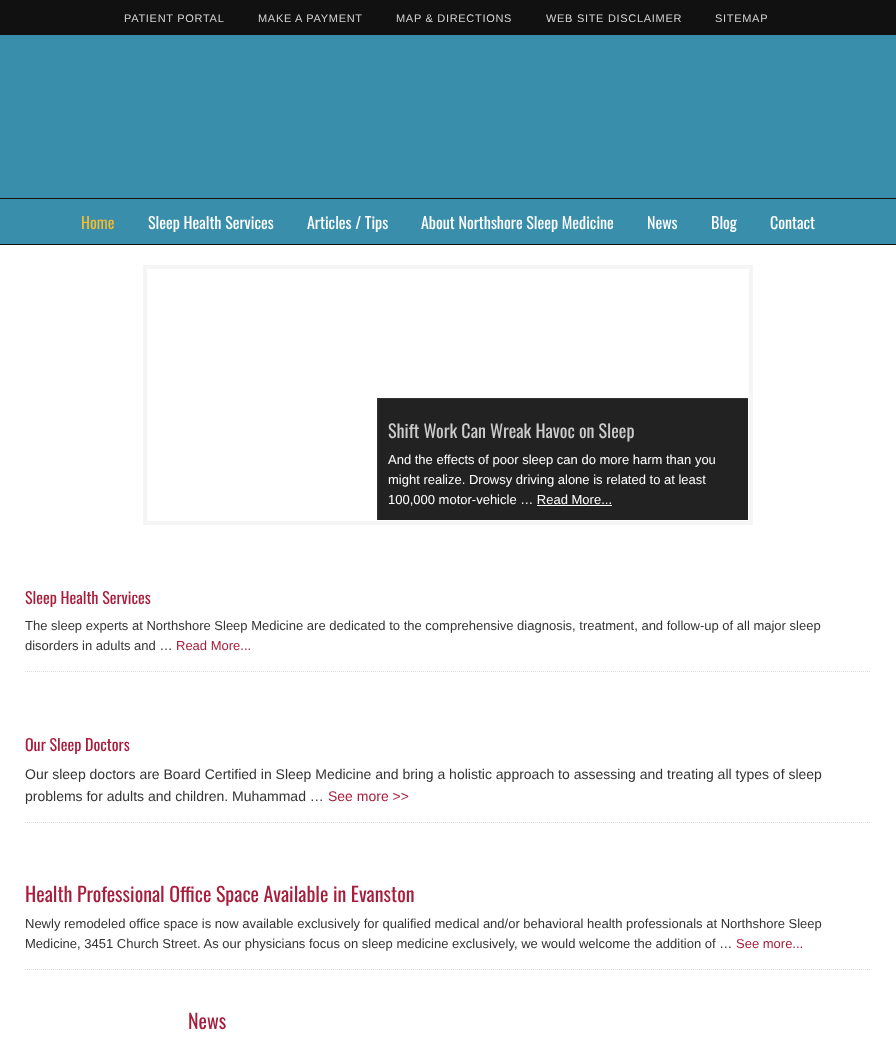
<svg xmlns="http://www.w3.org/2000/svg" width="896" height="1046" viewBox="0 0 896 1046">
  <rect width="100%" height="100%" fill="rgb(56,142,171)"/>
  <rect x="0" y="0" width="896" height="35" fill="rgb(17,17,17)"/>
  <g font-family="Liberation Sans" font-size="11" letter-spacing="0.7" fill="rgb(214,214,214)">
    <text x="124" y="22">PATIENT PORTAL</text>
    <text x="258" y="22">MAKE A PAYMENT</text>
    <text x="396" y="22">MAP &amp; DIRECTIONS</text>
    <text x="546" y="22">WEB SITE DISCLAIMER</text>
    <text x="715" y="22">SITEMAP</text>
  </g>
  <rect x="0" y="198" width="896" height="1" fill="rgb(17,17,17)"/>
  <rect x="0" y="244" width="896" height="1" fill="rgb(17,17,17)"/>
  <text x="81" y="229" font-family="Oswald" font-size="16" fill="rgb(245,187,46)">Home</text>
  <g font-family="Oswald" font-size="16" fill="rgb(255,255,255)">
    <text x="148" y="229">Sleep Health Services</text>
    <text x="307" y="229">Articles / Tips</text>
    <text x="421" y="229">About Northshore Sleep Medicine</text>
    <text x="647" y="229">News</text>
    <text x="711" y="229">Blog</text>
    <text x="770" y="229">Contact</text>
  </g>
  <rect x="0" y="245" width="896" height="801" fill="rgb(255,255,255)"/>
  <rect x="145" y="267" width="606" height="256" fill="none" stroke="rgb(245,245,245)" stroke-width="4"/>
  <rect x="378" y="399" width="370" height="121" fill="rgb(34,34,34)"/>
  <rect x="377" y="398" width="371" height="1" fill="rgb(51,51,51)"/>
  <rect x="377" y="398" width="1" height="122" fill="rgb(51,51,51)"/>
  <text x="388" y="438" font-family="Oswald" font-size="18" fill="rgb(204,204,204)">Shift Work Can Wreak Havoc on Sleep</text>
  <g font-family="Liberation Sans" font-size="13" fill="rgb(255,255,255)">
    <text>
      <tspan x="388" y="464">And the effects of poor sleep can do more harm than you</tspan>
      <tspan x="388" y="484">might realize. Drowsy driving alone is related to at least</tspan>
      <tspan x="388" y="504">100,000 motor-vehicle … Read More...</tspan>
    </text>
  </g>
  <rect x="537" y="505" width="75" height="1" fill="rgb(255,255,255)"/>
  <path d="M25 671.5H871" fill="none" stroke="rgb(221,221,221)" stroke-dasharray="1 1"/>
  <text x="25" y="604" font-family="Oswald" font-size="16" fill="rgb(168,29,60)">Sleep Health Services</text>
  <g font-family="Liberation Sans" font-size="13" fill="rgb(51,51,51)">
    <text>
      <tspan x="25" y="630">The sleep experts at Northshore Sleep Medicine are dedicated to the comprehensive diagnosis, treatment, and follow-up of all major sleep</tspan>
      <tspan x="25" y="650">disorders in adults and …</tspan>
    </text>
  </g>
  <text x="176" y="650" font-family="Liberation Sans" font-size="13" fill="rgb(168,29,60)">Read More...</text>
  <path d="M25 822.5H871" fill="none" stroke="rgb(221,221,221)" stroke-dasharray="1 1"/>
  <text x="25" y="751" font-family="Oswald" font-size="16" fill="rgb(168,29,60)">Our Sleep Doctors</text>
  <g font-family="Liberation Sans" font-size="14" fill="rgb(51,51,51)">
    <text>
      <tspan x="25" y="779">Our sleep doctors are Board Certified in Sleep Medicine and bring a holistic approach to assessing and treating all types of sleep</tspan>
      <tspan x="25" y="801">problems for adults and children. Muhammad …</tspan>
    </text>
  </g>
  <text x="328" y="801" font-family="Liberation Sans" font-size="14" fill="rgb(168,29,60)">See more &gt;&gt;</text>
  <path d="M25 969.5H871" fill="none" stroke="rgb(221,221,221)" stroke-dasharray="1 1"/>
  <text x="25" y="902" font-family="Oswald" font-size="20" fill="rgb(168,29,60)">Health Professional Office Space Available in Evanston</text>
  <g font-family="Liberation Sans" font-size="13" fill="rgb(51,51,51)">
    <text>
      <tspan x="25" y="928">Newly remodeled office space is now available exclusively for qualified medical and/or behavioral health professionals at Northshore Sleep</tspan>
      <tspan x="25" y="948">Medicine, 3451 Church Street. As our physicians focus on sleep medicine exclusively, we would welcome the addition of …</tspan>
    </text>
  </g>
  <text x="736" y="948" font-family="Liberation Sans" font-size="13" fill="rgb(168,29,60)">See more...</text>
  <text x="188" y="1029" font-family="Oswald" font-size="20" fill="rgb(168,29,60)">News</text>
</svg>
